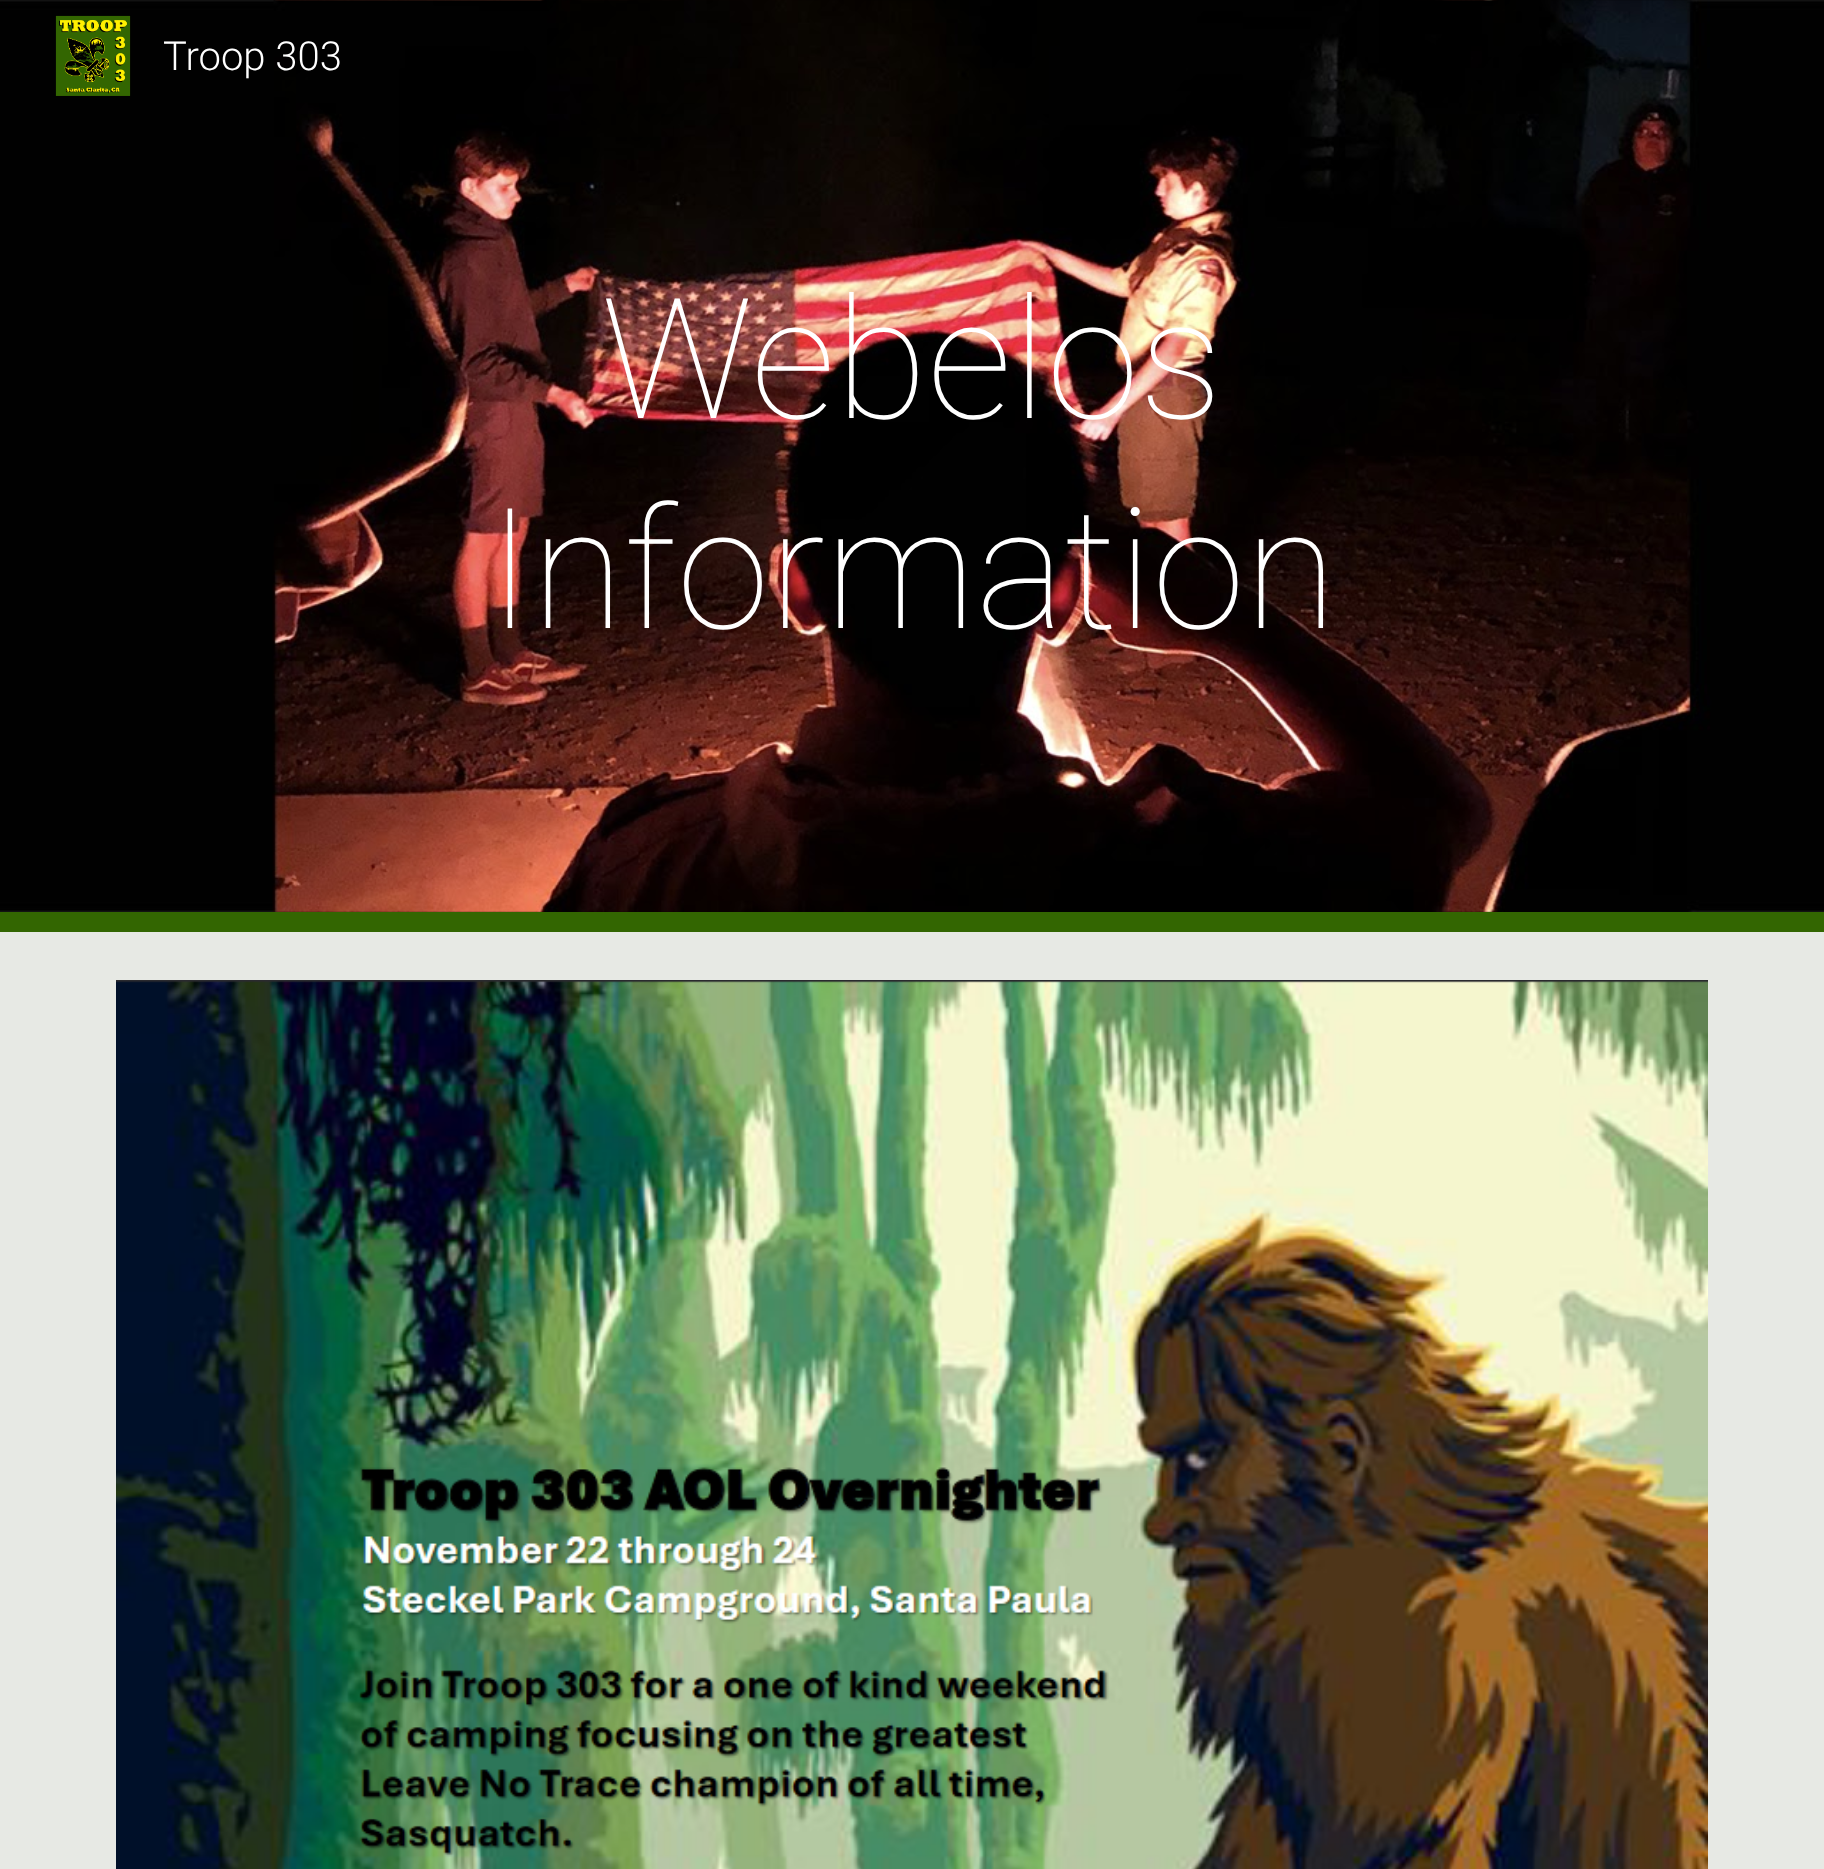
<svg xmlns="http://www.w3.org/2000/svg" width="1824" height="1869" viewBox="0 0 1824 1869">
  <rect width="100%" height="100%" fill="rgb(231,233,228)"/>
  <image x="0" y="0" width="1824" height="912" href="pic2.png"/>
  <image x="55" y="15" width="76" height="81" href="pic1.png"/>
  <text x="163" y="70" font-family="Roboto" font-size="40" font-weight="300" fill="rgb(255,255,255)">Troop 303</text>
  <rect x="0" y="912" width="1824" height="20" fill="rgb(51,102,1)"/>
  <g font-family="Roboto" font-size="168" font-weight="100" fill="rgb(255,255,255)">
    <text x="601" y="418">Webelos</text>
    <text x="488" y="628">Information</text>
  </g>
  <image x="116" y="980" width="1592" height="889" href="pic3.png"/>
</svg>
